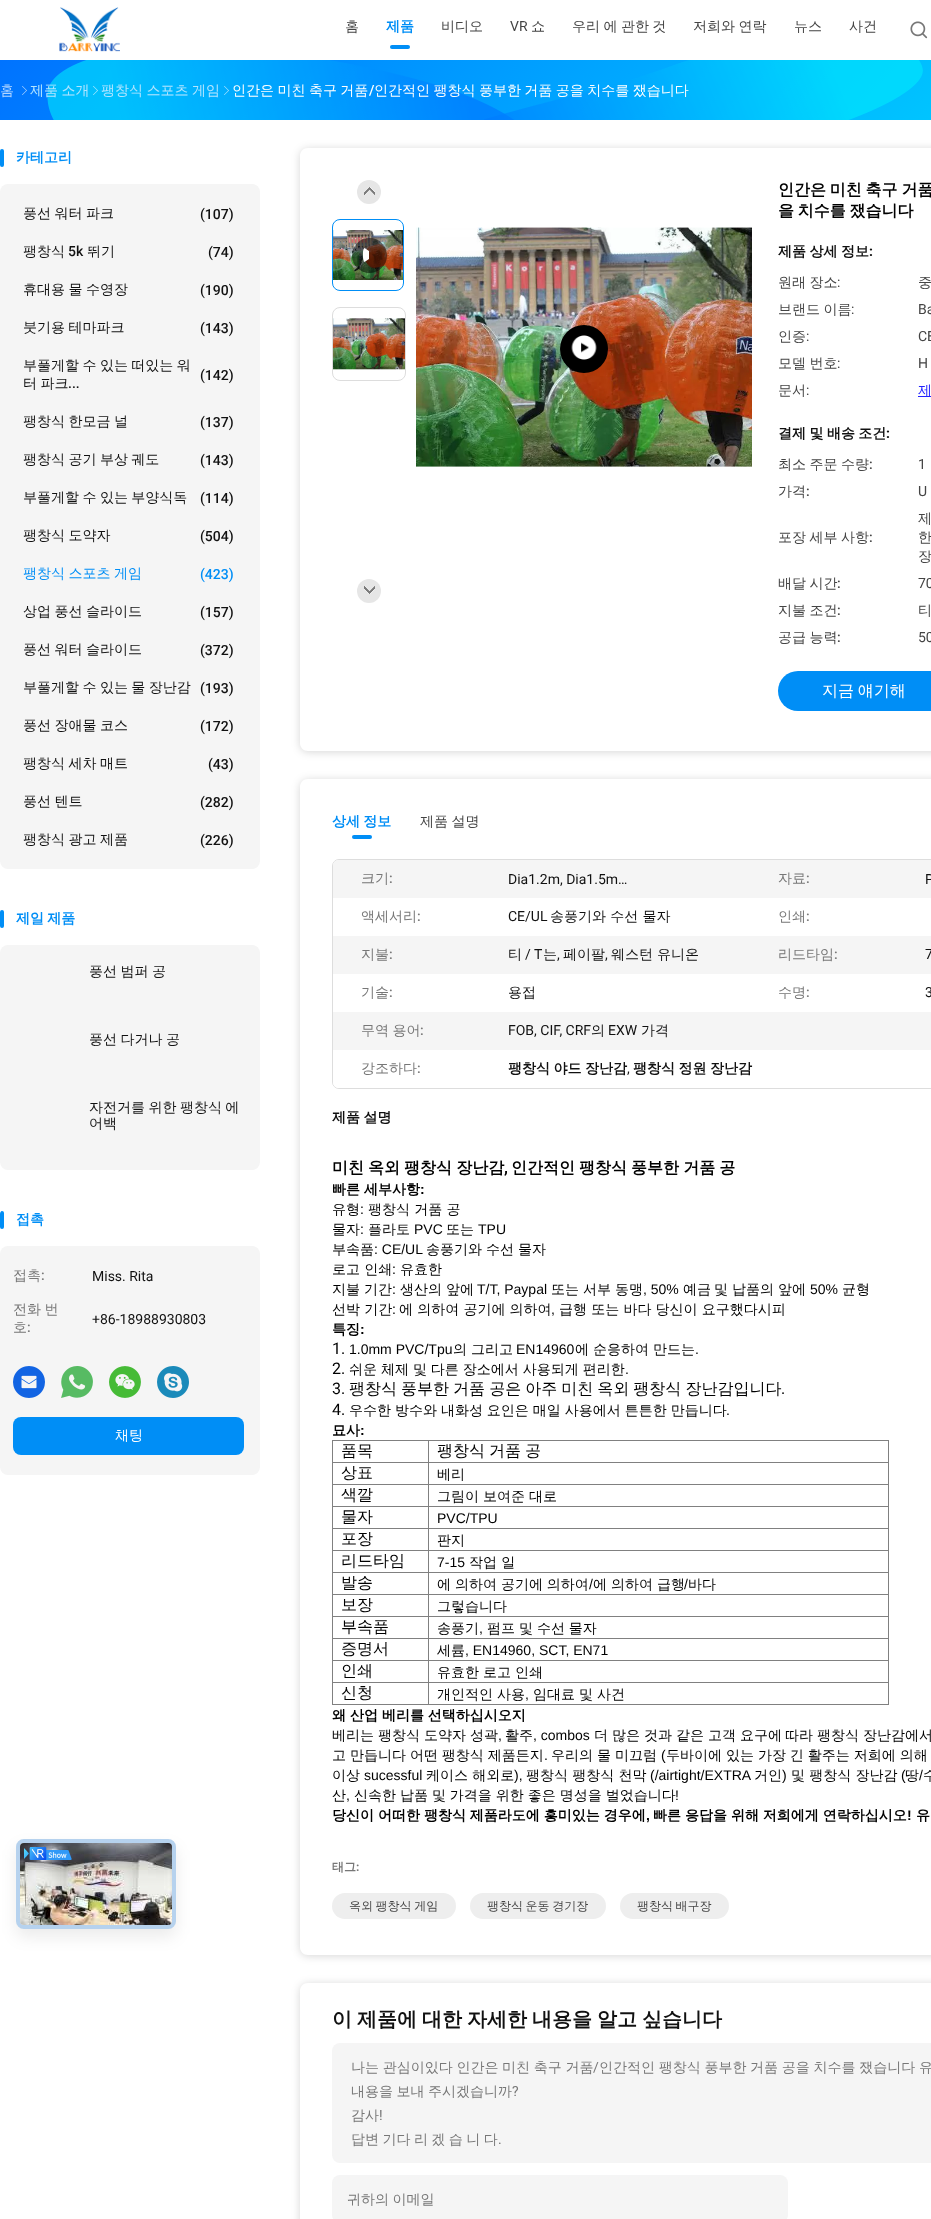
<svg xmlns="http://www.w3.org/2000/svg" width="931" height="2219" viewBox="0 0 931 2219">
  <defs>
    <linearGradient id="g1" gradientUnits="userSpaceOnUse" x1="218" y1="-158" x2="713" y2="338"><stop offset="0" stop-color="rgb(0,115,255)"/><stop offset="1" stop-color="rgb(0,196,255)"/></linearGradient>
    <clipPath id="clip1"><rect x="0" y="1210" width="260" height="265" rx="4"/></clipPath>
    <clipPath id="clip2"><path d="M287 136H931V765H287ZM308 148H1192C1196.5 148 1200 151.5 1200 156V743C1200 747.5 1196.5 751 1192 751H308C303.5 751 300 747.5 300 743V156C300 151.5 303.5 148 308 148Z" clip-rule="evenodd"/></clipPath>
    <clipPath id="clip3"><path d="M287 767H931V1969H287ZM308 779H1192C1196.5 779 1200 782.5 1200 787V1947C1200 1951.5 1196.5 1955 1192 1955H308C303.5 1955 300 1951.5 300 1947V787C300 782.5 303.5 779 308 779Z" clip-rule="evenodd"/></clipPath>
    <clipPath id="clip4"><path d="M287 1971H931V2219H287ZM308 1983H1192C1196.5 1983 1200 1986.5 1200 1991V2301C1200 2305.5 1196.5 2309 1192 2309H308C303.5 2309 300 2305.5 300 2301V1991C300 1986.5 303.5 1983 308 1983Z" clip-rule="evenodd"/></clipPath>
  </defs>
  <rect width="100%" height="100%" fill="rgb(255,255,255)"/>
  <image x="59" y="7" width="61" height="45" href="pic1.png"/>
  <text x="345" y="31" font-family="WenQuanYi Zen Hei" font-size="14" font-weight="500" fill="rgb(68,68,68)">홈</text>
  <text x="386" y="31" font-family="WenQuanYi Zen Hei" font-size="14" font-weight="bold" fill="rgb(0,142,246)">제품</text>
  <rect x="390" y="45" width="20" height="4" rx="2" fill="rgb(0,142,246)"/>
  <text x="441" y="31" font-family="WenQuanYi Zen Hei" font-size="14" font-weight="500" fill="rgb(68,68,68)">비디오</text>
  <text x="510" y="31" font-family="Roboto" font-size="14" fill="rgb(68,68,68)">VR</text>
  <g font-family="WenQuanYi Zen Hei" font-size="14" font-weight="500" fill="rgb(68,68,68)">
    <text x="531" y="31">쇼</text>
    <text x="572" y="31" word-spacing="-0.75">우리 에 관한 것</text>
    <text x="693" y="31" word-spacing="-0.75">저희와 연락</text>
    <text x="794" y="31">뉴스</text>
    <text x="849" y="31">사건</text>
  </g>
  <image x="910" y="21" width="18" height="18" href="pic2.png"/>
  <rect x="0" y="60" width="931" height="60" fill="url(#g1)"/>
  <image x="47" y="60" width="467" height="60" href="pic3.png"/>
  <image x="484" y="60" width="439" height="60" href="pic4.png"/>
  <text x="0" y="95" font-family="WenQuanYi Zen Hei" font-size="14" font-weight="500" fill="rgb(179,214,255)">홈</text>
  <image x="22" y="86" width="5" height="9" href="pic5.png"/>
  <text x="30" y="95" word-spacing="-0.75" font-family="WenQuanYi Zen Hei" font-size="14" font-weight="500" fill="rgb(179,229,255)">제품 소개</text>
  <image x="93" y="86" width="5" height="9" href="pic6.png"/>
  <text x="101" y="95" word-spacing="-0.75" font-family="WenQuanYi Zen Hei" font-size="14" font-weight="500" fill="rgb(179,229,255)">팽창식 스포츠 게임</text>
  <image x="224" y="86" width="5" height="9" href="pic7.png"/>
  <text x="232" y="95" word-spacing="-0.75" font-family="WenQuanYi Zen Hei" font-size="14" font-weight="500" fill="rgb(255,255,255)">인간은 미친 축구 거품</text>
  <text x="369" y="95" font-family="Roboto" font-size="14" font-weight="500" fill="rgb(255,255,255)">/</text>
  <text x="374" y="95" word-spacing="-0.75" font-family="WenQuanYi Zen Hei" font-size="14" font-weight="500" fill="rgb(255,255,255)">인간적인 팽창식 풍부한 거품 공을 치수를 쟀습니다</text>
  <rect x="0" y="149" width="4" height="18" rx="2" fill="rgb(0,142,246)"/>
  <text x="16" y="162" font-family="WenQuanYi Zen Hei" font-size="14" font-weight="bold" fill="rgb(0,142,246)">카테고리</text>
  <rect x="0" y="184" width="260" height="685" rx="8" fill="rgb(245,245,245)"/>
  <text x="23" y="218" word-spacing="-0.75" font-family="WenQuanYi Zen Hei" font-size="14" font-weight="500" fill="rgb(17,17,17)">풍선 워터 파크</text>
  <text x="200" y="219" font-family="Roboto" font-size="14" font-weight="500" fill="rgb(17,17,17)">(107)</text>
  <text x="23" y="256" font-family="WenQuanYi Zen Hei" font-size="14" font-weight="500" fill="rgb(17,17,17)">팽창식</text>
  <text x="68" y="256" font-family="Roboto" font-size="14" font-weight="500" fill="rgb(17,17,17)">5k</text>
  <text x="87" y="256" font-family="WenQuanYi Zen Hei" font-size="14" font-weight="500" fill="rgb(17,17,17)">뛰기</text>
  <text x="208" y="257" font-family="Roboto" font-size="14" font-weight="500" fill="rgb(17,17,17)">(74)</text>
  <text x="23" y="294" word-spacing="-0.75" font-family="WenQuanYi Zen Hei" font-size="14" font-weight="500" fill="rgb(17,17,17)">휴대용 물 수영장</text>
  <text x="200" y="295" font-family="Roboto" font-size="14" font-weight="500" fill="rgb(17,17,17)">(190)</text>
  <text x="23" y="332" word-spacing="-0.75" font-family="WenQuanYi Zen Hei" font-size="14" font-weight="500" fill="rgb(17,17,17)">붓기용 테마파크</text>
  <text x="200" y="333" font-family="Roboto" font-size="14" font-weight="500" fill="rgb(17,17,17)">(143)</text>
  <g font-family="WenQuanYi Zen Hei" font-size="14" font-weight="500" fill="rgb(17,17,17)">
    <text>
      <tspan x="23" y="370" word-spacing="-0.75">부풀게할 수 있는 떠있는 워</tspan>
      <tspan x="23" y="388" word-spacing="-0.75">터 파크</tspan>
    </text>
  </g>
  <g font-family="Roboto" font-size="14" font-weight="500" fill="rgb(17,17,17)">
    <text x="68" y="388">...</text>
    <text x="200" y="380">(142)</text>
  </g>
  <text x="23" y="426" word-spacing="-0.75" font-family="WenQuanYi Zen Hei" font-size="14" font-weight="500" fill="rgb(17,17,17)">팽창식 한모금 널</text>
  <text x="200" y="427" font-family="Roboto" font-size="14" font-weight="500" fill="rgb(17,17,17)">(137)</text>
  <text x="23" y="464" word-spacing="-0.75" font-family="WenQuanYi Zen Hei" font-size="14" font-weight="500" fill="rgb(17,17,17)">팽창식 공기 부상 궤도</text>
  <text x="200" y="465" font-family="Roboto" font-size="14" font-weight="500" fill="rgb(17,17,17)">(143)</text>
  <text x="23" y="502" word-spacing="-0.75" font-family="WenQuanYi Zen Hei" font-size="14" font-weight="500" fill="rgb(17,17,17)">부풀게할 수 있는 부양식독</text>
  <text x="200" y="503" font-family="Roboto" font-size="14" font-weight="500" fill="rgb(17,17,17)">(114)</text>
  <text x="23" y="540" word-spacing="-0.75" font-family="WenQuanYi Zen Hei" font-size="14" font-weight="500" fill="rgb(17,17,17)">팽창식 도약자</text>
  <text x="200" y="541" font-family="Roboto" font-size="14" font-weight="500" fill="rgb(17,17,17)">(504)</text>
  <text x="23" y="578" word-spacing="-0.75" font-family="WenQuanYi Zen Hei" font-size="14" font-weight="500" fill="rgb(0,142,246)">팽창식 스포츠 게임</text>
  <text x="200" y="579" font-family="Roboto" font-size="14" font-weight="500" fill="rgb(0,142,246)">(423)</text>
  <text x="23" y="616" word-spacing="-0.75" font-family="WenQuanYi Zen Hei" font-size="14" font-weight="500" fill="rgb(17,17,17)">상업 풍선 슬라이드</text>
  <text x="200" y="617" font-family="Roboto" font-size="14" font-weight="500" fill="rgb(17,17,17)">(157)</text>
  <text x="23" y="654" word-spacing="-0.75" font-family="WenQuanYi Zen Hei" font-size="14" font-weight="500" fill="rgb(17,17,17)">풍선 워터 슬라이드</text>
  <text x="200" y="655" font-family="Roboto" font-size="14" font-weight="500" fill="rgb(17,17,17)">(372)</text>
  <text x="23" y="692" word-spacing="-0.75" font-family="WenQuanYi Zen Hei" font-size="14" font-weight="500" fill="rgb(17,17,17)">부풀게할 수 있는 물 장난감</text>
  <text x="200" y="693" font-family="Roboto" font-size="14" font-weight="500" fill="rgb(17,17,17)">(193)</text>
  <text x="23" y="730" word-spacing="-0.75" font-family="WenQuanYi Zen Hei" font-size="14" font-weight="500" fill="rgb(17,17,17)">풍선 장애물 코스</text>
  <text x="200" y="731" font-family="Roboto" font-size="14" font-weight="500" fill="rgb(17,17,17)">(172)</text>
  <text x="23" y="768" word-spacing="-0.75" font-family="WenQuanYi Zen Hei" font-size="14" font-weight="500" fill="rgb(17,17,17)">팽창식 세차 매트</text>
  <text x="208" y="769" font-family="Roboto" font-size="14" font-weight="500" fill="rgb(17,17,17)">(43)</text>
  <text x="23" y="806" word-spacing="-0.75" font-family="WenQuanYi Zen Hei" font-size="14" font-weight="500" fill="rgb(17,17,17)">풍선 텐트</text>
  <text x="200" y="807" font-family="Roboto" font-size="14" font-weight="500" fill="rgb(17,17,17)">(282)</text>
  <text x="23" y="844" word-spacing="-0.75" font-family="WenQuanYi Zen Hei" font-size="14" font-weight="500" fill="rgb(17,17,17)">팽창식 광고 제품</text>
  <text x="200" y="845" font-family="Roboto" font-size="14" font-weight="500" fill="rgb(17,17,17)">(226)</text>
  <rect x="0" y="910" width="4" height="18" rx="2" fill="rgb(0,142,246)"/>
  <text x="16" y="923" word-spacing="-1" font-family="WenQuanYi Zen Hei" font-size="14" font-weight="bold" fill="rgb(0,142,246)">제일 제품</text>
  <rect x="0" y="945" width="260" height="225" rx="8" fill="rgb(245,245,245)"/>
  <g font-family="WenQuanYi Zen Hei" font-size="14" font-weight="500" fill="rgb(17,17,17)">
    <text x="89" y="976" word-spacing="-0.75">풍선 범퍼 공</text>
    <text x="89" y="1044" word-spacing="-0.75">풍선 다거나 공</text>
    <text>
      <tspan x="89" y="1112" word-spacing="-0.75">자전거를 위한 팽창식 에</tspan>
      <tspan x="89" y="1128">어백</tspan>
    </text>
  </g>
  <g clip-path="url(#clip1)">
    <rect x="0" y="1211" width="4" height="18" rx="2" fill="rgb(0,142,246)"/>
  </g>
  <text x="16" y="1224" font-family="WenQuanYi Zen Hei" font-size="14" font-weight="bold" fill="rgb(0,142,246)">접촉</text>
  <rect x="0" y="1246" width="260" height="229" rx="8" fill="rgb(245,245,245)"/>
  <text x="13" y="1280" font-family="WenQuanYi Zen Hei" font-size="14" font-weight="500" fill="rgb(119,119,119)">접촉</text>
  <text x="41" y="1280" font-family="Roboto" font-size="14" font-weight="500" fill="rgb(119,119,119)">:</text>
  <text x="92" y="1281" font-family="Roboto" font-size="14" fill="rgb(17,17,17)">Miss. Rita</text>
  <g font-family="WenQuanYi Zen Hei" font-size="14" font-weight="500" fill="rgb(119,119,119)">
    <text>
      <tspan x="13" y="1314" word-spacing="-0.75">전화 번</tspan>
      <tspan x="13" y="1332">호</tspan>
    </text>
  </g>
  <text x="27" y="1332" font-family="Roboto" font-size="14" font-weight="500" fill="rgb(119,119,119)">:</text>
  <text x="92" y="1324" font-family="Roboto" font-size="14" fill="rgb(17,17,17)">+86-18988930803</text>
  <image x="13" y="1366" width="32" height="32" href="pic8.png"/>
  <image x="61" y="1366" width="32" height="32" href="pic9.png"/>
  <image x="109" y="1366" width="32" height="32" href="pic10.png"/>
  <image x="157" y="1366" width="32" height="32" href="pic11.png"/>
  <rect x="13" y="1417" width="231" height="38" rx="8" fill="rgb(0,142,246)"/>
  <text x="115" y="1440" font-family="WenQuanYi Zen Hei" font-size="14" font-weight="500" fill="rgb(255,255,255)">채팅</text>
  <g clip-path="url(#clip2)">
    <rect x="300" y="149" width="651" height="603" rx="8" fill="rgba(0,0,0,0.16)" filter="blur(4px)"/>
  </g>
  <circle cx="369" cy="192" r="12" fill="rgb(230,230,230)"/>
  <image x="364" y="187" width="11" height="8" href="pic12.png"/>
  <rect x="332.5" y="219.5" width="71" height="71" rx="7.5" fill="none" stroke="rgb(0,142,246)"/>
  <image x="333" y="230" width="70" height="50" href="pic13.png"/>
  <circle cx="369.5" cy="255.5" r="17.5" fill="rgba(0,0,0,0.5)"/>
  <path d="M363 252C363 250.5 363.5 249 364.5 248L369 251V259L364.5 262C362.5 260.5 363 254.5 363 252Z" fill="rgb(255,255,255)"/>
  <rect x="332.5" y="307.5" width="73" height="73" rx="7.5" fill="none" stroke="rgb(221,221,221)"/>
  <image x="333" y="318" width="72" height="52" href="pic14.png"/>
  <circle cx="369" cy="591" r="12" fill="rgb(230,230,230)"/>
  <image x="364" y="586" width="11" height="8" href="pic15.png"/>
  <image x="416" y="227" width="336" height="240" href="pic16.png"/>
  <circle cx="584" cy="349" r="24" fill="rgb(0,0,0)"/>
  <image x="571" y="335" width="26" height="25" href="pic17.png"/>
  <g font-family="WenQuanYi Zen Hei" font-size="16" font-weight="bold" fill="rgb(0,0,0)">
    <text>
      <tspan x="778" y="195" word-spacing="-1">인간은 미친 축구 거품</tspan>
      <tspan x="778" y="216" word-spacing="-1">을 치수를 쟀습니다</tspan>
    </text>
  </g>
  <text x="778" y="256" word-spacing="-0.75" font-family="WenQuanYi Zen Hei" font-size="14" font-weight="bold" fill="rgb(17,17,17)">제품 상세 정보</text>
  <text x="869" y="256" font-family="Roboto" font-size="14" font-weight="bold" fill="rgb(17,17,17)">:</text>
  <text x="778" y="287" word-spacing="-0.75" font-family="WenQuanYi Zen Hei" font-size="14" font-weight="500" fill="rgb(68,68,68)">원래 장소</text>
  <text x="837" y="287" font-family="Roboto" font-size="14" fill="rgb(68,68,68)">:</text>
  <g font-family="WenQuanYi Zen Hei" font-size="14" font-weight="500" fill="rgb(68,68,68)">
    <text x="918" y="287">중</text>
    <text x="778" y="314" word-spacing="-0.75">브랜드 이름</text>
  </g>
  <g font-family="Roboto" font-size="14" fill="rgb(68,68,68)">
    <text x="851" y="314">:</text>
    <text x="918" y="314">Ba</text>
  </g>
  <text x="778" y="341" font-family="WenQuanYi Zen Hei" font-size="14" font-weight="500" fill="rgb(68,68,68)">인증</text>
  <g font-family="Roboto" font-size="14" fill="rgb(68,68,68)">
    <text x="806" y="341">:</text>
    <text x="918" y="341">CE</text>
  </g>
  <text x="778" y="368" word-spacing="-0.75" font-family="WenQuanYi Zen Hei" font-size="14" font-weight="500" fill="rgb(68,68,68)">모델 번호</text>
  <g font-family="Roboto" font-size="14" fill="rgb(68,68,68)">
    <text x="837" y="368">:</text>
    <text x="918" y="368">H</text>
  </g>
  <text x="778" y="395" font-family="WenQuanYi Zen Hei" font-size="14" font-weight="500" fill="rgb(68,68,68)">문서</text>
  <text x="806" y="395" font-family="Roboto" font-size="14" fill="rgb(68,68,68)">:</text>
  <rect x="918" y="396" width="13" height="1" fill="rgb(35,35,255)"/>
  <text x="918" y="395" font-family="WenQuanYi Zen Hei" font-size="14" font-weight="500" fill="rgb(35,35,255)">제</text>
  <text x="778" y="438" word-spacing="-0.75" font-family="WenQuanYi Zen Hei" font-size="14" font-weight="bold" fill="rgb(17,17,17)">결제 및 배송 조건</text>
  <text x="886" y="438" font-family="Roboto" font-size="14" font-weight="bold" fill="rgb(17,17,17)">:</text>
  <text x="778" y="469" word-spacing="-0.75" font-family="WenQuanYi Zen Hei" font-size="14" font-weight="500" fill="rgb(68,68,68)">최소 주문 수량</text>
  <text x="869" y="469" font-family="Roboto" font-size="14" font-weight="500" fill="rgb(68,68,68)">:</text>
  <text x="918" y="469" font-family="Roboto" font-size="14" fill="rgb(68,68,68)">1</text>
  <text x="778" y="496" font-family="WenQuanYi Zen Hei" font-size="14" font-weight="500" fill="rgb(68,68,68)">가격</text>
  <text x="806" y="496" font-family="Roboto" font-size="14" font-weight="500" fill="rgb(68,68,68)">:</text>
  <text x="918" y="496" font-family="Roboto" font-size="14" fill="rgb(68,68,68)">U</text>
  <text x="778" y="542" word-spacing="-0.75" font-family="WenQuanYi Zen Hei" font-size="14" font-weight="500" fill="rgb(68,68,68)">포장 세부 사항</text>
  <text x="869" y="542" font-family="Roboto" font-size="14" font-weight="500" fill="rgb(68,68,68)">:</text>
  <g font-family="WenQuanYi Zen Hei" font-size="14" font-weight="500" fill="rgb(68,68,68)">
    <text>
      <tspan x="918" y="523" word-spacing="-0.5">제</tspan>
      <tspan x="918" y="542" word-spacing="-1">한</tspan>
      <tspan x="918" y="561">장</tspan>
    </text>
    <text x="778" y="588" word-spacing="-0.75">배달 시간</text>
  </g>
  <text x="837" y="588" font-family="Roboto" font-size="14" font-weight="500" fill="rgb(68,68,68)">:</text>
  <text x="918" y="588" font-family="Roboto" font-size="14" fill="rgb(68,68,68)">70</text>
  <text x="778" y="615" word-spacing="-0.75" font-family="WenQuanYi Zen Hei" font-size="14" font-weight="500" fill="rgb(68,68,68)">지불 조건</text>
  <text x="837" y="615" font-family="Roboto" font-size="14" font-weight="500" fill="rgb(68,68,68)">:</text>
  <g font-family="WenQuanYi Zen Hei" font-size="14" font-weight="500" fill="rgb(68,68,68)">
    <text x="918" y="615">티</text>
    <text x="778" y="642" word-spacing="-0.75">공급 능력</text>
  </g>
  <text x="837" y="642" font-family="Roboto" font-size="14" font-weight="500" fill="rgb(68,68,68)">:</text>
  <text x="918" y="642" font-family="Roboto" font-size="14" fill="rgb(68,68,68)">50</text>
  <rect x="778" y="671" width="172" height="40" rx="20" fill="rgb(0,142,246)"/>
  <text x="822" y="696" word-spacing="-1" font-family="WenQuanYi Zen Hei" font-size="16" font-weight="500" fill="rgb(255,255,255)">지금 얘기해</text>
  <g clip-path="url(#clip3)">
    <rect x="300" y="780" width="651" height="1176" rx="8" fill="rgba(0,0,0,0.16)" filter="blur(4px)"/>
  </g>
  <text x="332" y="826" word-spacing="-1" font-family="WenQuanYi Zen Hei" font-size="14" font-weight="bold" fill="rgb(0,142,246)">상세 정보</text>
  <rect x="352" y="835" width="20" height="4" rx="2" fill="rgb(0,142,246)"/>
  <text x="420" y="826" word-spacing="-0.75" font-family="WenQuanYi Zen Hei" font-size="14" font-weight="500" fill="rgb(68,68,68)">제품 설명</text>
  <rect x="332.5" y="859.5" width="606" height="229" rx="6.5" fill="none" stroke="rgb(221,221,221)"/>
  <path d="M339 860H931C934.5 860 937 862.5 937 866V898H333V866C333 862.5 335.5 860 339 860Z" fill="rgb(245,245,245)"/>
  <text x="361" y="883" font-family="WenQuanYi Zen Hei" font-size="14" font-weight="500" fill="rgb(119,119,119)">크기</text>
  <text x="389" y="883" font-family="Roboto" font-size="14" font-weight="500" fill="rgb(119,119,119)">:</text>
  <text x="508" y="884" font-family="Roboto" font-size="14" fill="rgb(17,17,17)">Dia1.2m, Dia1.5m…</text>
  <text x="778" y="883" font-family="WenQuanYi Zen Hei" font-size="14" font-weight="500" fill="rgb(119,119,119)">자료</text>
  <text x="806" y="883" font-family="Roboto" font-size="14" font-weight="500" fill="rgb(119,119,119)">:</text>
  <text x="925" y="884" font-family="Roboto" font-size="14" fill="rgb(17,17,17)">P</text>
  <text x="361" y="921" font-family="WenQuanYi Zen Hei" font-size="14" font-weight="500" fill="rgb(119,119,119)">액세서리</text>
  <text x="417" y="921" font-family="Roboto" font-size="14" font-weight="500" fill="rgb(119,119,119)">:</text>
  <text x="508" y="921" font-family="Roboto" font-size="14" fill="rgb(17,17,17)">CE/UL</text>
  <text x="550" y="921" font-family="WenQuanYi Zen Hei" font-size="14" font-weight="500" fill="rgb(17,17,17)">송풍기와 수선 물자</text>
  <text x="778" y="921" font-family="WenQuanYi Zen Hei" font-size="14" font-weight="500" fill="rgb(119,119,119)">인쇄</text>
  <text x="806" y="921" font-family="Roboto" font-size="14" font-weight="500" fill="rgb(119,119,119)">:</text>
  <rect x="333" y="936" width="598" height="38" fill="rgb(245,245,245)"/>
  <text x="361" y="959" font-family="WenQuanYi Zen Hei" font-size="14" font-weight="500" fill="rgb(119,119,119)">지불</text>
  <text x="389" y="959" font-family="Roboto" font-size="14" font-weight="500" fill="rgb(119,119,119)">:</text>
  <text x="508" y="959" font-family="WenQuanYi Zen Hei" font-size="14" font-weight="500" fill="rgb(17,17,17)">티</text>
  <text x="525" y="959" font-family="Roboto" font-size="14" fill="rgb(17,17,17)">/ T</text>
  <text x="543" y="959" font-family="WenQuanYi Zen Hei" font-size="14" font-weight="500" fill="rgb(17,17,17)">는</text>
  <text x="557" y="959" font-family="Roboto" font-size="14" fill="rgb(17,17,17)">,</text>
  <text x="563" y="959" font-family="WenQuanYi Zen Hei" font-size="14" font-weight="500" fill="rgb(17,17,17)">페이팔</text>
  <text x="605" y="959" font-family="Roboto" font-size="14" fill="rgb(17,17,17)">,</text>
  <g font-family="WenQuanYi Zen Hei" font-size="14" font-weight="500" fill="rgb(17,17,17)">
    <text x="611" y="959">웨스턴</text>
    <text x="657" y="959">유니온</text>
  </g>
  <text x="778" y="959" font-family="WenQuanYi Zen Hei" font-size="14" font-weight="500" fill="rgb(119,119,119)">리드타임</text>
  <text x="834" y="959" font-family="Roboto" font-size="14" font-weight="500" fill="rgb(119,119,119)">:</text>
  <text x="925" y="959" font-family="Roboto" font-size="14" fill="rgb(17,17,17)">7</text>
  <text x="361" y="997" font-family="WenQuanYi Zen Hei" font-size="14" font-weight="500" fill="rgb(119,119,119)">기술</text>
  <text x="389" y="997" font-family="Roboto" font-size="14" font-weight="500" fill="rgb(119,119,119)">:</text>
  <text x="508" y="997" font-family="WenQuanYi Zen Hei" font-size="14" font-weight="500" fill="rgb(17,17,17)">용접</text>
  <text x="778" y="997" font-family="WenQuanYi Zen Hei" font-size="14" font-weight="500" fill="rgb(119,119,119)">수명</text>
  <text x="806" y="997" font-family="Roboto" font-size="14" font-weight="500" fill="rgb(119,119,119)">:</text>
  <text x="925" y="997" font-family="Roboto" font-size="14" fill="rgb(17,17,17)">3</text>
  <rect x="333" y="1012" width="598" height="38" fill="rgb(245,245,245)"/>
  <text x="361" y="1035" word-spacing="-0.75" font-family="WenQuanYi Zen Hei" font-size="14" font-weight="500" fill="rgb(119,119,119)">무역 용어</text>
  <text x="420" y="1035" font-family="Roboto" font-size="14" font-weight="500" fill="rgb(119,119,119)">:</text>
  <text x="508" y="1035" font-family="Roboto" font-size="14" fill="rgb(17,17,17)">FOB, CIF, CRF</text>
  <text x="591" y="1035" font-family="WenQuanYi Zen Hei" font-size="14" font-weight="500" fill="rgb(17,17,17)">의</text>
  <text x="608" y="1035" font-family="Roboto" font-size="14" fill="rgb(17,17,17)">EXW</text>
  <text x="641" y="1035" font-family="WenQuanYi Zen Hei" font-size="14" font-weight="500" fill="rgb(17,17,17)">가격</text>
  <path d="M333 1050H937V1082C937 1085.5 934.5 1088 931 1088H339C335.5 1088 333 1085.5 333 1082Z" fill="rgb(255,255,255)"/>
  <text x="361" y="1073" font-family="WenQuanYi Zen Hei" font-size="14" font-weight="500" fill="rgb(119,119,119)">강조하다</text>
  <text x="417" y="1073" font-family="Roboto" font-size="14" font-weight="500" fill="rgb(119,119,119)">:</text>
  <text x="508" y="1073" word-spacing="-0.75" font-family="WenQuanYi Zen Hei" font-size="14" font-weight="bold" fill="rgb(17,17,17)">팽창식 야드 장난감</text>
  <text x="627" y="1073" font-family="Roboto" font-size="14" fill="rgb(17,17,17)">,</text>
  <g font-family="WenQuanYi Zen Hei" font-size="14" font-weight="bold" fill="rgb(17,17,17)">
    <text x="633" y="1073" word-spacing="-0.75">팽창식 정원 장난감</text>
    <text x="332" y="1122" word-spacing="-0.75">제품 설명</text>
  </g>
  <text x="332" y="1173" word-spacing="-0.75" font-family="WenQuanYi Zen Hei" font-size="16" font-weight="bold" fill="rgb(0,0,0)">미친 옥외 팽창식 장난감</text>
  <text x="504" y="1173" font-family="Roboto" font-size="16" font-weight="bold" fill="rgb(0,0,0)">,</text>
  <text x="511" y="1173" word-spacing="-0.75" font-family="WenQuanYi Zen Hei" font-size="16" font-weight="bold" fill="rgb(0,0,0)">인간적인 팽창식 풍부한 거품 공</text>
  <text x="332" y="1194" word-spacing="-0.25" font-family="WenQuanYi Zen Hei" font-size="14" font-weight="bold" fill="rgb(0,0,0)">빠른 세부사항</text>
  <text x="420" y="1194" font-family="Liberation Sans" font-size="14" font-weight="bold" fill="rgb(0,0,0)">:</text>
  <text x="332" y="1214" font-family="WenQuanYi Zen Hei" font-size="14" font-weight="500" fill="rgb(0,0,0)">유형</text>
  <text x="360" y="1214" font-family="Liberation Sans" font-size="14" fill="rgb(0,0,0)">:</text>
  <g font-family="WenQuanYi Zen Hei" font-size="14" font-weight="500" fill="rgb(0,0,0)">
    <text x="368" y="1214">팽창식 거품 공</text>
    <text x="332" y="1234">물자</text>
  </g>
  <text x="360" y="1234" font-family="Liberation Sans" font-size="14" fill="rgb(0,0,0)">:</text>
  <text x="368" y="1234" font-family="WenQuanYi Zen Hei" font-size="14" font-weight="500" fill="rgb(0,0,0)">플라토</text>
  <text x="414" y="1234" font-family="Liberation Sans" font-size="14" fill="rgb(0,0,0)">PVC</text>
  <text x="446" y="1234" font-family="WenQuanYi Zen Hei" font-size="14" font-weight="500" fill="rgb(0,0,0)">또는</text>
  <text x="478" y="1234" font-family="Liberation Sans" font-size="14" fill="rgb(0,0,0)">TPU</text>
  <text x="332" y="1254" font-family="WenQuanYi Zen Hei" font-size="14" font-weight="500" fill="rgb(0,0,0)">부속품</text>
  <text x="374" y="1254" font-family="Liberation Sans" font-size="14" fill="rgb(0,0,0)">: CE/UL</text>
  <g font-family="WenQuanYi Zen Hei" font-size="14" font-weight="500" fill="rgb(0,0,0)">
    <text x="426" y="1254">송풍기와</text>
    <text x="486" y="1254">수선</text>
    <text x="518" y="1254">물자</text>
    <text x="332" y="1274">로고 인쇄</text>
  </g>
  <text x="392" y="1274" font-family="Liberation Sans" font-size="14" fill="rgb(0,0,0)">:</text>
  <g font-family="WenQuanYi Zen Hei" font-size="14" font-weight="500" fill="rgb(0,0,0)">
    <text x="400" y="1274">유효한</text>
    <text x="332" y="1294">지불</text>
    <text x="364" y="1294">기간</text>
  </g>
  <text x="392" y="1294" font-family="Liberation Sans" font-size="14" fill="rgb(0,0,0)">:</text>
  <g font-family="WenQuanYi Zen Hei" font-size="14" font-weight="500" fill="rgb(0,0,0)">
    <text x="400" y="1294">생산의</text>
    <text x="446" y="1294">앞에</text>
  </g>
  <text x="477" y="1294" font-family="Liberation Sans" font-size="14" fill="rgb(0,0,0)">T/T, Paypal</text>
  <g font-family="WenQuanYi Zen Hei" font-size="14" font-weight="500" fill="rgb(0,0,0)">
    <text x="551" y="1294">또는</text>
    <text x="583" y="1294">서부</text>
    <text x="615" y="1294">동맹</text>
  </g>
  <text x="643" y="1294" font-family="Liberation Sans" font-size="14" fill="rgb(0,0,0)">, 50%</text>
  <g font-family="WenQuanYi Zen Hei" font-size="14" font-weight="500" fill="rgb(0,0,0)">
    <text x="683" y="1294">예금</text>
    <text x="714" y="1294">및</text>
    <text x="732" y="1294">납품의</text>
    <text x="778" y="1294">앞에</text>
  </g>
  <text x="810" y="1294" font-family="Liberation Sans" font-size="14" fill="rgb(0,0,0)">50%</text>
  <g font-family="WenQuanYi Zen Hei" font-size="14" font-weight="500" fill="rgb(0,0,0)">
    <text x="842" y="1294">균형</text>
    <text x="332" y="1314">선박 기간</text>
  </g>
  <text x="392" y="1314" font-family="Liberation Sans" font-size="14" fill="rgb(0,0,0)">:</text>
  <text x="399" y="1314" font-family="WenQuanYi Zen Hei" font-size="14" font-weight="500" fill="rgb(0,0,0)">에 의하여 공기에 의하여</text>
  <text x="551" y="1314" font-family="Liberation Sans" font-size="14" fill="rgb(0,0,0)">,</text>
  <text x="559" y="1314" font-family="WenQuanYi Zen Hei" font-size="14" font-weight="500" fill="rgb(0,0,0)">급행 또는 바다 당신이 요구했다시피</text>
  <text x="332" y="1334" font-family="WenQuanYi Zen Hei" font-size="14" font-weight="bold" fill="rgb(0,0,0)">특징</text>
  <text x="360" y="1334" font-family="Liberation Sans" font-size="14" font-weight="bold" fill="rgb(0,0,0)">:</text>
  <text x="332" y="1354" font-family="Roboto" font-size="16" fill="rgb(0,0,0)">1.</text>
  <text x="349" y="1354" font-family="Liberation Sans" font-size="14" fill="rgb(0,0,0)">1.0mm PVC/Tpu</text>
  <g font-family="WenQuanYi Zen Hei" font-size="14" font-weight="500" fill="rgb(0,0,0)">
    <text x="453" y="1354">의</text>
    <text x="471" y="1354">그리고</text>
  </g>
  <text x="516" y="1354" font-family="Liberation Sans" font-size="14" fill="rgb(0,0,0)">EN14960</text>
  <g font-family="WenQuanYi Zen Hei" font-size="14" font-weight="500" fill="rgb(0,0,0)">
    <text x="575" y="1354">에</text>
    <text x="593" y="1354">순응하여</text>
    <text x="653" y="1354">만드는</text>
  </g>
  <text x="695" y="1354" font-family="Liberation Sans" font-size="14" fill="rgb(0,0,0)">.</text>
  <text x="332" y="1374" font-family="Roboto" font-size="16" fill="rgb(0,0,0)">2.</text>
  <text x="349" y="1374" word-spacing="-0.25" font-family="WenQuanYi Zen Hei" font-size="14" font-weight="500" fill="rgb(0,0,0)">쉬운 체제 및 다른 장소에서 사용되게 편리한</text>
  <text x="625" y="1374" font-family="Liberation Sans" font-size="14" fill="rgb(0,0,0)">.</text>
  <text x="332" y="1394" font-family="Roboto" font-size="16" fill="rgb(0,0,0)">3.</text>
  <text x="349" y="1394" word-spacing="-0.75" font-family="WenQuanYi Zen Hei" font-size="16" font-weight="500" fill="rgb(0,0,0)">팽창식 풍부한 거품 공은 아주 미친 옥외 팽창식 장난감입니다</text>
  <g font-family="Roboto" font-size="16" fill="rgb(0,0,0)">
    <text x="781" y="1394">.</text>
    <text x="332" y="1415">4.</text>
  </g>
  <text x="349" y="1415" word-spacing="-0.25" font-family="WenQuanYi Zen Hei" font-size="14" font-weight="500" fill="rgb(0,0,0)">우수한 방수와 내화성 요인은 매일 사용에서 튼튼한 만듭니다</text>
  <text x="726" y="1415" font-family="Liberation Sans" font-size="14" fill="rgb(0,0,0)">.</text>
  <text x="332" y="1435" font-family="WenQuanYi Zen Hei" font-size="14" font-weight="bold" fill="rgb(0,0,0)">묘사</text>
  <text x="360" y="1435" font-family="Liberation Sans" font-size="14" font-weight="bold" fill="rgb(0,0,0)">:</text>
  <rect x="332" y="1440" width="557" height="1" fill="rgb(128,128,128)"/>
  <rect x="888" y="1440" width="1" height="265" fill="rgb(128,128,128)"/>
  <rect x="332" y="1704" width="557" height="1" fill="rgb(128,128,128)"/>
  <rect x="332" y="1440" width="1" height="265" fill="rgb(128,128,128)"/>
  <text x="341" y="1456" font-family="WenQuanYi Zen Hei" font-size="16" font-weight="500" fill="rgb(0,0,0)">품목</text>
  <rect x="428" y="1462" width="461" height="1" fill="rgb(128,128,128)"/>
  <rect x="428" y="1484" width="461" height="1" fill="rgb(128,128,128)"/>
  <rect x="428" y="1506" width="461" height="1" fill="rgb(128,128,128)"/>
  <rect x="428" y="1528" width="461" height="1" fill="rgb(128,128,128)"/>
  <rect x="428" y="1550" width="461" height="1" fill="rgb(128,128,128)"/>
  <rect x="428" y="1572" width="461" height="1" fill="rgb(128,128,128)"/>
  <rect x="428" y="1594" width="461" height="1" fill="rgb(128,128,128)"/>
  <rect x="428" y="1616" width="461" height="1" fill="rgb(128,128,128)"/>
  <rect x="428" y="1638" width="461" height="1" fill="rgb(128,128,128)"/>
  <rect x="428" y="1660" width="461" height="1" fill="rgb(128,128,128)"/>
  <rect x="428" y="1682" width="461" height="1" fill="rgb(128,128,128)"/>
  <rect x="428" y="1682" width="1" height="23" fill="rgb(128,128,128)"/>
  <rect x="332" y="1682" width="97" height="1" fill="rgb(128,128,128)"/>
  <rect x="428" y="1660" width="1" height="23" fill="rgb(128,128,128)"/>
  <rect x="332" y="1660" width="97" height="1" fill="rgb(128,128,128)"/>
  <rect x="428" y="1638" width="1" height="23" fill="rgb(128,128,128)"/>
  <rect x="332" y="1638" width="97" height="1" fill="rgb(128,128,128)"/>
  <rect x="428" y="1616" width="1" height="23" fill="rgb(128,128,128)"/>
  <rect x="332" y="1616" width="97" height="1" fill="rgb(128,128,128)"/>
  <rect x="428" y="1594" width="1" height="23" fill="rgb(128,128,128)"/>
  <rect x="332" y="1594" width="97" height="1" fill="rgb(128,128,128)"/>
  <rect x="428" y="1572" width="1" height="23" fill="rgb(128,128,128)"/>
  <rect x="332" y="1572" width="97" height="1" fill="rgb(128,128,128)"/>
  <rect x="428" y="1550" width="1" height="23" fill="rgb(128,128,128)"/>
  <rect x="332" y="1550" width="97" height="1" fill="rgb(128,128,128)"/>
  <rect x="428" y="1528" width="1" height="23" fill="rgb(128,128,128)"/>
  <rect x="332" y="1528" width="97" height="1" fill="rgb(128,128,128)"/>
  <rect x="428" y="1506" width="1" height="23" fill="rgb(128,128,128)"/>
  <rect x="332" y="1506" width="97" height="1" fill="rgb(128,128,128)"/>
  <rect x="428" y="1484" width="1" height="23" fill="rgb(128,128,128)"/>
  <rect x="332" y="1484" width="97" height="1" fill="rgb(128,128,128)"/>
  <rect x="428" y="1462" width="1" height="23" fill="rgb(128,128,128)"/>
  <rect x="332" y="1462" width="97" height="1" fill="rgb(128,128,128)"/>
  <rect x="428" y="1440" width="1" height="23" fill="rgb(128,128,128)"/>
  <g font-family="WenQuanYi Zen Hei" font-size="16" font-weight="500" fill="rgb(0,0,0)">
    <text x="437" y="1456" word-spacing="-0.75">팽창식 거품 공</text>
    <text x="341" y="1478">상표</text>
  </g>
  <text x="437" y="1479" font-family="WenQuanYi Zen Hei" font-size="14" font-weight="500" fill="rgb(0,0,0)">베리</text>
  <text x="341" y="1500" font-family="WenQuanYi Zen Hei" font-size="16" font-weight="500" fill="rgb(0,0,0)">색깔</text>
  <text x="437" y="1501" word-spacing="-0.25" font-family="WenQuanYi Zen Hei" font-size="14" font-weight="500" fill="rgb(0,0,0)">그림이 보여준 대로</text>
  <text x="341" y="1522" font-family="WenQuanYi Zen Hei" font-size="16" font-weight="500" fill="rgb(0,0,0)">물자</text>
  <text x="437" y="1523" font-family="Liberation Sans" font-size="14" fill="rgb(0,0,0)">PVC/TPU</text>
  <text x="341" y="1544" font-family="WenQuanYi Zen Hei" font-size="16" font-weight="500" fill="rgb(0,0,0)">포장</text>
  <text x="437" y="1545" font-family="WenQuanYi Zen Hei" font-size="14" font-weight="500" fill="rgb(0,0,0)">판지</text>
  <text x="341" y="1566" font-family="WenQuanYi Zen Hei" font-size="16" font-weight="500" fill="rgb(0,0,0)">리드타임</text>
  <text x="437" y="1567" font-family="Liberation Sans" font-size="14" fill="rgb(0,0,0)">7-15</text>
  <text x="469" y="1567" font-family="WenQuanYi Zen Hei" font-size="14" font-weight="500" fill="rgb(0,0,0)">작업 일</text>
  <text x="341" y="1588" font-family="WenQuanYi Zen Hei" font-size="16" font-weight="500" fill="rgb(0,0,0)">발송</text>
  <text x="437" y="1589" word-spacing="-0.25" font-family="WenQuanYi Zen Hei" font-size="14" font-weight="500" fill="rgb(0,0,0)">에 의하여 공기에 의하여</text>
  <text x="589" y="1589" font-family="Liberation Sans" font-size="14" fill="rgb(0,0,0)">/</text>
  <text x="593" y="1589" word-spacing="-0.25" font-family="WenQuanYi Zen Hei" font-size="14" font-weight="500" fill="rgb(0,0,0)">에 의하여 급행</text>
  <text x="684" y="1589" font-family="Liberation Sans" font-size="14" fill="rgb(0,0,0)">/</text>
  <text x="688" y="1589" font-family="WenQuanYi Zen Hei" font-size="14" font-weight="500" fill="rgb(0,0,0)">바다</text>
  <text x="341" y="1610" font-family="WenQuanYi Zen Hei" font-size="16" font-weight="500" fill="rgb(0,0,0)">보장</text>
  <text x="437" y="1611" font-family="WenQuanYi Zen Hei" font-size="14" font-weight="500" fill="rgb(0,0,0)">그렇습니다</text>
  <text x="341" y="1632" font-family="WenQuanYi Zen Hei" font-size="16" font-weight="500" fill="rgb(0,0,0)">부속품</text>
  <text x="437" y="1633" font-family="WenQuanYi Zen Hei" font-size="14" font-weight="500" fill="rgb(0,0,0)">송풍기</text>
  <text x="479" y="1633" font-family="Liberation Sans" font-size="14" fill="rgb(0,0,0)">,</text>
  <text x="487" y="1633" word-spacing="-0.25" font-family="WenQuanYi Zen Hei" font-size="14" font-weight="500" fill="rgb(0,0,0)">펌프 및 수선 물자</text>
  <text x="341" y="1654" font-family="WenQuanYi Zen Hei" font-size="16" font-weight="500" fill="rgb(0,0,0)">증명서</text>
  <text x="437" y="1655" font-family="WenQuanYi Zen Hei" font-size="14" font-weight="500" fill="rgb(0,0,0)">세륨</text>
  <text x="465" y="1655" font-family="Liberation Sans" font-size="14" fill="rgb(0,0,0)">, EN14960, SCT, EN71</text>
  <text x="341" y="1676" font-family="WenQuanYi Zen Hei" font-size="16" font-weight="500" fill="rgb(0,0,0)">인쇄</text>
  <text x="437" y="1677" word-spacing="-0.25" font-family="WenQuanYi Zen Hei" font-size="14" font-weight="500" fill="rgb(0,0,0)">유효한 로고 인쇄</text>
  <text x="341" y="1698" font-family="WenQuanYi Zen Hei" font-size="16" font-weight="500" fill="rgb(0,0,0)">신청</text>
  <text x="437" y="1699" word-spacing="-0.25" font-family="WenQuanYi Zen Hei" font-size="14" font-weight="500" fill="rgb(0,0,0)">개인적인 사용</text>
  <text x="525" y="1699" font-family="Liberation Sans" font-size="14" fill="rgb(0,0,0)">,</text>
  <text x="533" y="1699" word-spacing="-0.25" font-family="WenQuanYi Zen Hei" font-size="14" font-weight="500" fill="rgb(0,0,0)">임대료 및 사건</text>
  <text x="332" y="1720" word-spacing="-0.25" font-family="WenQuanYi Zen Hei" font-size="14" font-weight="bold" fill="rgb(0,0,0)">왜 산업 베리를 선택하십시오지</text>
  <g font-family="WenQuanYi Zen Hei" font-size="14" font-weight="500" fill="rgb(0,0,0)">
    <text x="332" y="1740">베리는</text>
    <text x="378" y="1740">팽창식</text>
    <text x="424" y="1740">도약자</text>
    <text x="470" y="1740">성곽</text>
  </g>
  <text x="498" y="1740" font-family="Liberation Sans" font-size="14" fill="rgb(0,0,0)">,</text>
  <text x="505" y="1740" font-family="WenQuanYi Zen Hei" font-size="14" font-weight="500" fill="rgb(0,0,0)">활주</text>
  <text x="533" y="1740" font-family="Liberation Sans" font-size="14" fill="rgb(0,0,0)">, combos</text>
  <g font-family="WenQuanYi Zen Hei" font-size="14" font-weight="500" fill="rgb(0,0,0)">
    <text x="594" y="1740">더</text>
    <text x="612" y="1740">많은</text>
    <text x="644" y="1740">것과</text>
    <text x="676" y="1740">같은</text>
    <text x="708" y="1740">고객</text>
    <text x="740" y="1740">요구에</text>
    <text x="785" y="1740">따라</text>
    <text x="817" y="1740">팽창식</text>
    <text x="863" y="1740">장난감에서</text>
    <text x="332" y="1760" word-spacing="-0.25">고 만듭니다 어떤 팽창식 제품든지</text>
  </g>
  <text x="544" y="1760" font-family="Liberation Sans" font-size="14" fill="rgb(0,0,0)">.</text>
  <text x="551" y="1760" word-spacing="-0.25" font-family="WenQuanYi Zen Hei" font-size="14" font-weight="500" fill="rgb(0,0,0)">우리의 물 미끄럼</text>
  <text x="661" y="1760" font-family="Liberation Sans" font-size="14" fill="rgb(0,0,0)">(</text>
  <g font-family="WenQuanYi Zen Hei" font-size="14" font-weight="500" fill="rgb(0,0,0)">
    <text x="666" y="1760" word-spacing="-0.25">두바이에 있는 가장 긴 활주는 저희에 의해</text>
    <text x="332" y="1780">이상</text>
  </g>
  <text x="364" y="1780" font-family="Liberation Sans" font-size="14" fill="rgb(0,0,0)">sucessful</text>
  <text x="426" y="1780" font-family="WenQuanYi Zen Hei" font-size="14" font-weight="500" fill="rgb(0,0,0)">케이스 해외로</text>
  <text x="514" y="1780" font-family="Liberation Sans" font-size="14" fill="rgb(0,0,0)">),</text>
  <text x="526" y="1780" font-family="WenQuanYi Zen Hei" font-size="14" font-weight="500" fill="rgb(0,0,0)">팽창식 팽창식 천막</text>
  <text x="650" y="1780" font-family="Liberation Sans" font-size="14" fill="rgb(0,0,0)">(/airtight/EXTRA</text>
  <text x="754" y="1780" font-family="WenQuanYi Zen Hei" font-size="14" font-weight="500" fill="rgb(0,0,0)">거인</text>
  <text x="782" y="1780" font-family="Liberation Sans" font-size="14" fill="rgb(0,0,0)">)</text>
  <text x="791" y="1780" font-family="WenQuanYi Zen Hei" font-size="14" font-weight="500" fill="rgb(0,0,0)">및 팽창식 장난감</text>
  <text x="901" y="1780" font-family="Liberation Sans" font-size="14" fill="rgb(0,0,0)">(</text>
  <text x="905" y="1780" font-family="WenQuanYi Zen Hei" font-size="14" font-weight="500" fill="rgb(0,0,0)">땅</text>
  <text x="919" y="1780" font-family="Liberation Sans" font-size="14" fill="rgb(0,0,0)">/</text>
  <g font-family="WenQuanYi Zen Hei" font-size="14" font-weight="500" fill="rgb(0,0,0)">
    <text x="923" y="1780">수</text>
    <text x="332" y="1800">산</text>
  </g>
  <text x="346" y="1800" font-family="Liberation Sans" font-size="14" fill="rgb(0,0,0)">,</text>
  <text x="354" y="1800" word-spacing="-0.25" font-family="WenQuanYi Zen Hei" font-size="14" font-weight="500" fill="rgb(0,0,0)">신속한 납품 및 가격을 위한 좋은 명성을 벌었습니다</text>
  <text x="675" y="1800" font-family="Liberation Sans" font-size="14" fill="rgb(0,0,0)">!</text>
  <text x="332" y="1820" word-spacing="-0.25" font-family="WenQuanYi Zen Hei" font-size="14" font-weight="bold" fill="rgb(0,0,0)">당신이 어떠한 팽창식 제품라도에 흥미있는 경우에</text>
  <text x="646" y="1820" font-family="Liberation Sans" font-size="14" font-weight="bold" fill="rgb(0,0,0)">,</text>
  <text x="653" y="1820" word-spacing="-0.25" font-family="WenQuanYi Zen Hei" font-size="14" font-weight="bold" fill="rgb(0,0,0)">빠른 응답을 위해 저희에게 연락하십시오</text>
  <text x="907" y="1820" font-family="Liberation Sans" font-size="14" font-weight="bold" fill="rgb(0,0,0)">!</text>
  <text x="916" y="1820" word-spacing="-0.25" font-family="WenQuanYi Zen Hei" font-size="14" font-weight="bold" fill="rgb(0,0,0)">유</text>
  <text x="332" y="1871" font-family="WenQuanYi Zen Hei" font-size="12" font-weight="bold" fill="rgb(119,119,119)">태그</text>
  <text x="356" y="1871" font-family="Roboto" font-size="12" font-weight="bold" fill="rgb(119,119,119)">:</text>
  <rect x="332" y="1893" width="124" height="26" rx="13" fill="rgb(238,238,238)"/>
  <text x="349" y="1910" word-spacing="-1" font-family="WenQuanYi Zen Hei" font-size="12" font-weight="500" fill="rgb(68,68,68)">옥외 팽창식 게임</text>
  <rect x="470" y="1893" width="136" height="26" rx="13" fill="rgb(238,238,238)"/>
  <text x="487" y="1910" word-spacing="-1" font-family="WenQuanYi Zen Hei" font-size="12" font-weight="500" fill="rgb(68,68,68)">팽창식 운동 경기장</text>
  <rect x="620" y="1893" width="109" height="26" rx="13" fill="rgb(238,238,238)"/>
  <text x="637" y="1910" word-spacing="-1" font-family="WenQuanYi Zen Hei" font-size="12" font-weight="500" fill="rgb(68,68,68)">팽창식 배구장</text>
  <g clip-path="url(#clip4)">
    <rect x="300" y="1984" width="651" height="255" rx="8" fill="rgba(0,0,0,0.16)" filter="blur(4px)"/>
  </g>
  <text x="332" y="2026" word-spacing="-1" font-family="WenQuanYi Zen Hei" font-size="20" font-weight="bold" fill="rgb(17,17,17)">이 제품에 대한 자세한 내용을 알고 싶습니다</text>
  <rect x="332" y="2043" width="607" height="120" rx="8" fill="rgb(245,245,245)"/>
  <text x="351" y="2072" word-spacing="-0.5" font-family="WenQuanYi Zen Hei" font-size="14" font-weight="500" fill="rgb(119,119,119)">나는 관심이있다 인간은 미친 축구 거품</text>
  <text x="593" y="2072" font-family="Roboto" font-size="14" fill="rgb(119,119,119)">/</text>
  <g font-family="WenQuanYi Zen Hei" font-size="14" font-weight="500" fill="rgb(119,119,119)">
    <text x="599" y="2072" word-spacing="-0.5">인간적인 팽창식 풍부한 거품 공을 치수를 쟀습니다 유</text>
    <text x="351" y="2096" word-spacing="-0.75">내용을 보내 주시겠습니까</text>
  </g>
  <text x="512" y="2096" font-family="Roboto" font-size="14" fill="rgb(119,119,119)">?</text>
  <text x="351" y="2120" font-family="WenQuanYi Zen Hei" font-size="14" font-weight="500" fill="rgb(119,119,119)">감사</text>
  <text x="379" y="2120" font-family="Roboto" font-size="14" fill="rgb(119,119,119)">!</text>
  <text x="351" y="2144" word-spacing="-0.75" font-family="WenQuanYi Zen Hei" font-size="14" font-weight="500" fill="rgb(119,119,119)">답변 기다 리 겠 습 니 다</text>
  <text x="498" y="2144" font-family="Roboto" font-size="14" fill="rgb(119,119,119)">.</text>
  <rect x="332" y="2175" width="456" height="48" rx="8" fill="rgb(245,245,245)"/>
  <text x="347" y="2204" word-spacing="-0.75" font-family="WenQuanYi Zen Hei" font-size="14" font-weight="500" fill="rgb(119,119,119)">귀하의 이메일</text>
  <rect x="16" y="1847" width="160" height="90" rx="8" fill="rgba(0,0,0,0.08)" filter="blur(8px)"/>
  <rect x="16" y="1839" width="160" height="90" rx="8" fill="rgb(238,238,238)"/>
  <rect x="18" y="1841" width="156" height="86" rx="6" fill="none" stroke="rgba(4,120,237,0.24)" stroke-width="4"/>
  <image x="20" y="1843" width="152" height="82" href="pic18.png"/>
  <image x="24" y="1847" width="48" height="13" href="pic19.png"/>
</svg>
